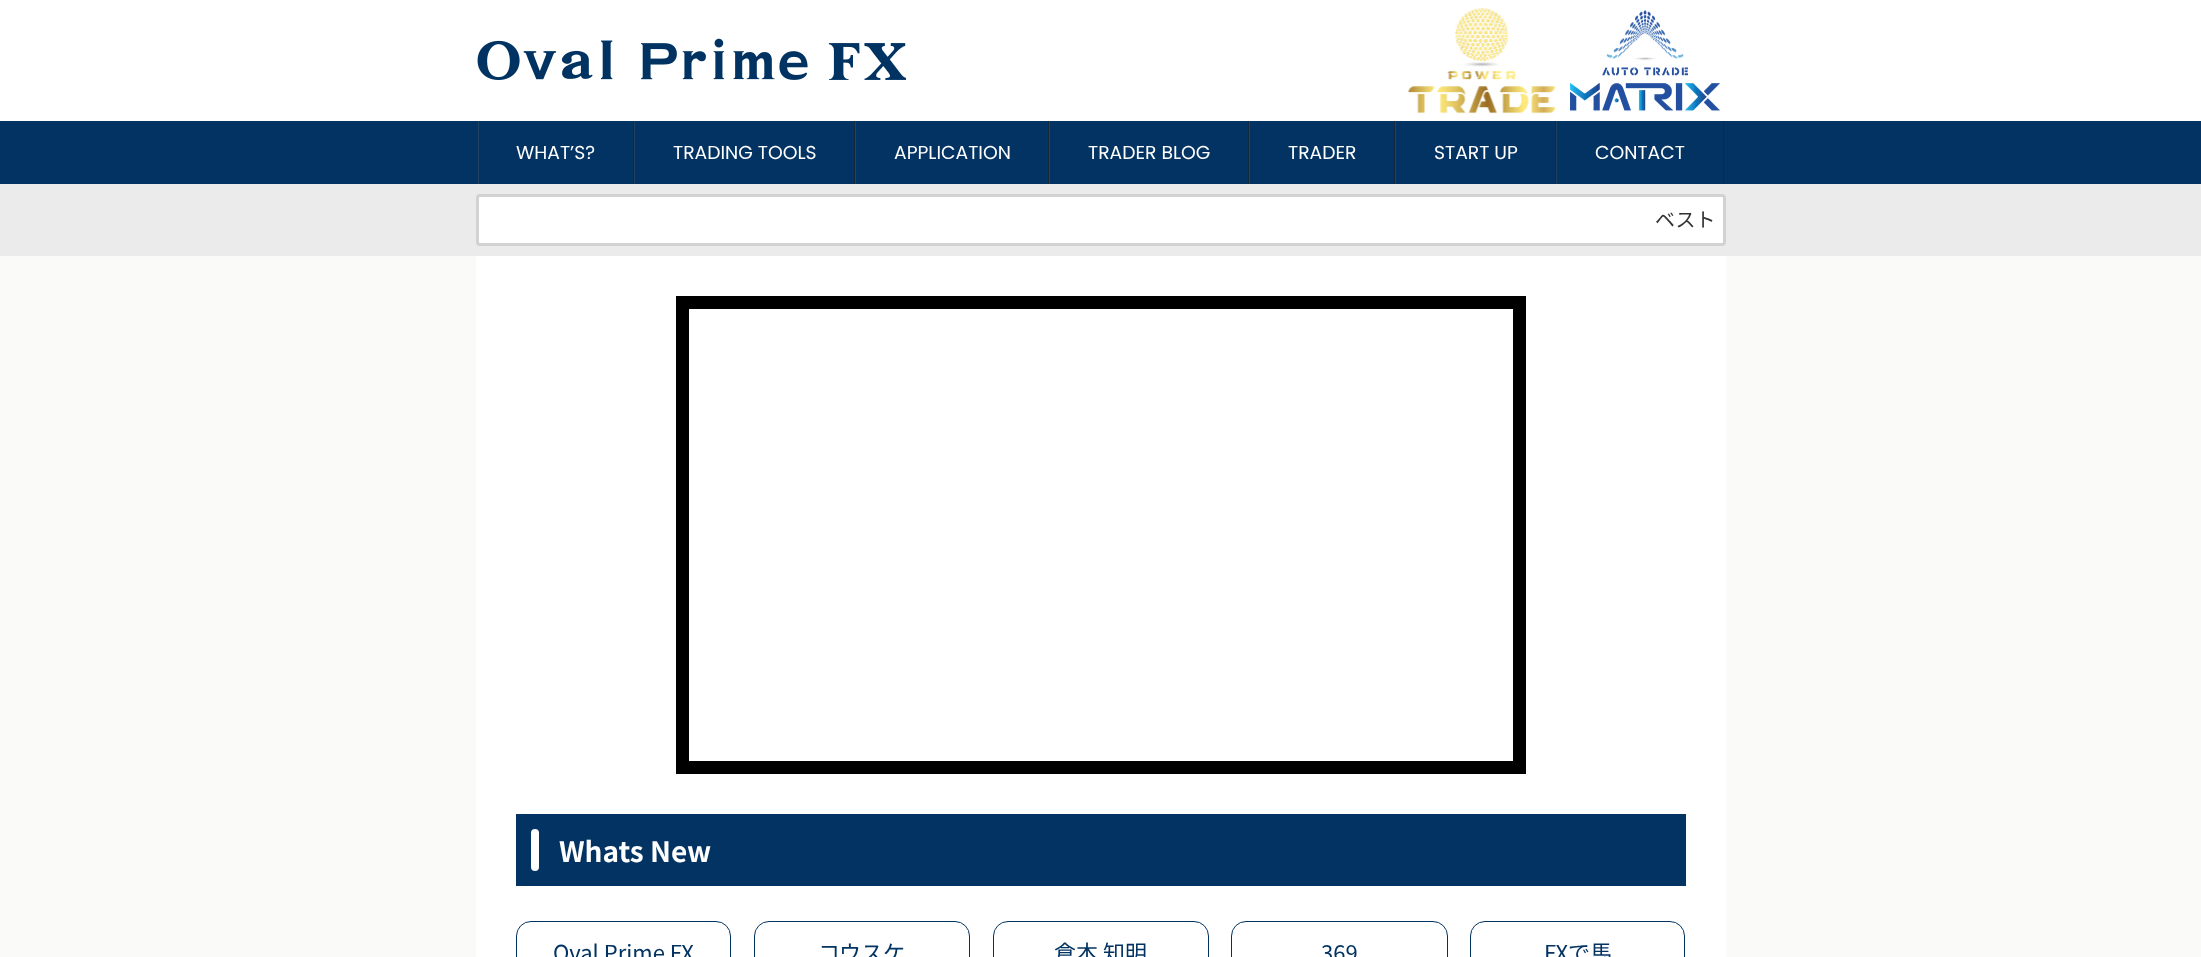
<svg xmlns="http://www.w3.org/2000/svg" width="2201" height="957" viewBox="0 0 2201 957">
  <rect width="100%" height="100%" fill="rgb(250,250,249)"/>
  <rect x="0" y="0" width="2201" height="121" fill="rgb(255,255,255)"/>
  <image x="477" y="38" width="429" height="42" href="pic1.png"/>
  <image x="1408" y="8" width="148" height="106" href="pic2.png"/>
  <image x="1570" y="10" width="150" height="102" href="pic3.png"/>
  <rect x="0" y="121" width="2201" height="63" fill="rgb(2,51,98)"/>
  <rect x="633" y="121" width="1" height="63" fill="rgb(21,40,59)"/>
  <rect x="478" y="121" width="1" height="63" fill="rgb(32,67,100)"/>
  <text x="516" y="159" font-family="Poppins" font-size="18.75" fill="rgb(255,255,255)">WHAT’S?</text>
  <rect x="854" y="121" width="1" height="63" fill="rgb(21,40,59)"/>
  <rect x="634" y="121" width="1" height="63" fill="rgb(32,67,100)"/>
  <text x="673" y="159" font-family="Poppins" font-size="18.75" fill="rgb(255,255,255)">TRADING TOOLS</text>
  <rect x="1048" y="121" width="1" height="63" fill="rgb(21,40,59)"/>
  <rect x="855" y="121" width="1" height="63" fill="rgb(32,67,100)"/>
  <text x="894" y="159" font-family="Poppins" font-size="18.75" fill="rgb(255,255,255)">APPLICATION</text>
  <rect x="1248" y="121" width="1" height="63" fill="rgb(21,40,59)"/>
  <rect x="1049" y="121" width="1" height="63" fill="rgb(32,67,100)"/>
  <text x="1088" y="159" font-family="Poppins" font-size="18.75" fill="rgb(255,255,255)">TRADER BLOG</text>
  <rect x="1394" y="121" width="1" height="63" fill="rgb(21,40,59)"/>
  <rect x="1249" y="121" width="1" height="63" fill="rgb(32,67,100)"/>
  <text x="1288" y="159" font-family="Poppins" font-size="18.75" fill="rgb(255,255,255)">TRADER</text>
  <rect x="1555" y="121" width="1" height="63" fill="rgb(21,40,59)"/>
  <rect x="1395" y="121" width="1" height="63" fill="rgb(32,67,100)"/>
  <text x="1434" y="159" font-family="Poppins" font-size="18.75" fill="rgb(255,255,255)">START UP</text>
  <rect x="1723" y="121" width="1" height="63" fill="rgb(21,40,59)"/>
  <rect x="1556" y="121" width="1" height="63" fill="rgb(32,67,100)"/>
  <text x="1595" y="159" font-family="Poppins" font-size="18.75" fill="rgb(255,255,255)">CONTACT</text>
  <rect x="0" y="184" width="2201" height="72" fill="rgb(235,235,235)"/>
  <rect x="477.5" y="195.5" width="1247" height="49" rx="2.5" fill="rgb(255,255,255)" stroke="rgb(210,210,210)" stroke-width="3"/>
  <text x="1655" y="227" font-family="Noto Sans JP" font-size="20" fill="rgb(51,51,51)">ベスト</text>
  <rect x="476" y="256" width="1250" height="701" fill="rgb(255,255,255)"/>
  <rect x="682.5" y="302.5" width="837" height="465" fill="none" stroke="rgb(0,0,0)" stroke-width="13"/>
  <rect x="516" y="814" width="1170" height="72" fill="rgb(2,51,98)"/>
  <rect x="531" y="829" width="8" height="42" rx="4" fill="rgb(255,255,255)"/>
  <text x="559" y="862" font-family="Noto Sans JP" font-size="28" font-weight="bold" fill="rgb(255,255,255)">Whats New</text>
  <rect x="516.5" y="921.5" width="214" height="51" rx="14.5" fill="none" stroke="rgb(2,51,98)"/>
  <text x="553" y="961" font-family="Noto Sans JP" font-size="22" fill="rgb(2,51,98)">Oval Prime FX</text>
  <rect x="754.5" y="921.5" width="215" height="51" rx="14.5" fill="none" stroke="rgb(2,51,98)"/>
  <text x="818" y="961" font-family="Noto Sans JP" font-size="22" fill="rgb(2,51,98)">コウスケ</text>
  <rect x="993.5" y="921.5" width="215" height="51" rx="14.5" fill="none" stroke="rgb(2,51,98)"/>
  <text x="1054" y="961" font-family="Noto Sans JP" font-size="22" fill="rgb(2,51,98)">倉本 知明</text>
  <rect x="1231.5" y="921.5" width="216" height="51" rx="14.5" fill="none" stroke="rgb(2,51,98)"/>
  <text x="1321" y="961" font-family="Noto Sans JP" font-size="22" fill="rgb(2,51,98)">369</text>
  <rect x="1470.5" y="921.5" width="214" height="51" rx="14.5" fill="none" stroke="rgb(2,51,98)"/>
  <text x="1544" y="961" font-family="Noto Sans JP" font-size="22" fill="rgb(2,51,98)">FXで馬</text>
</svg>
